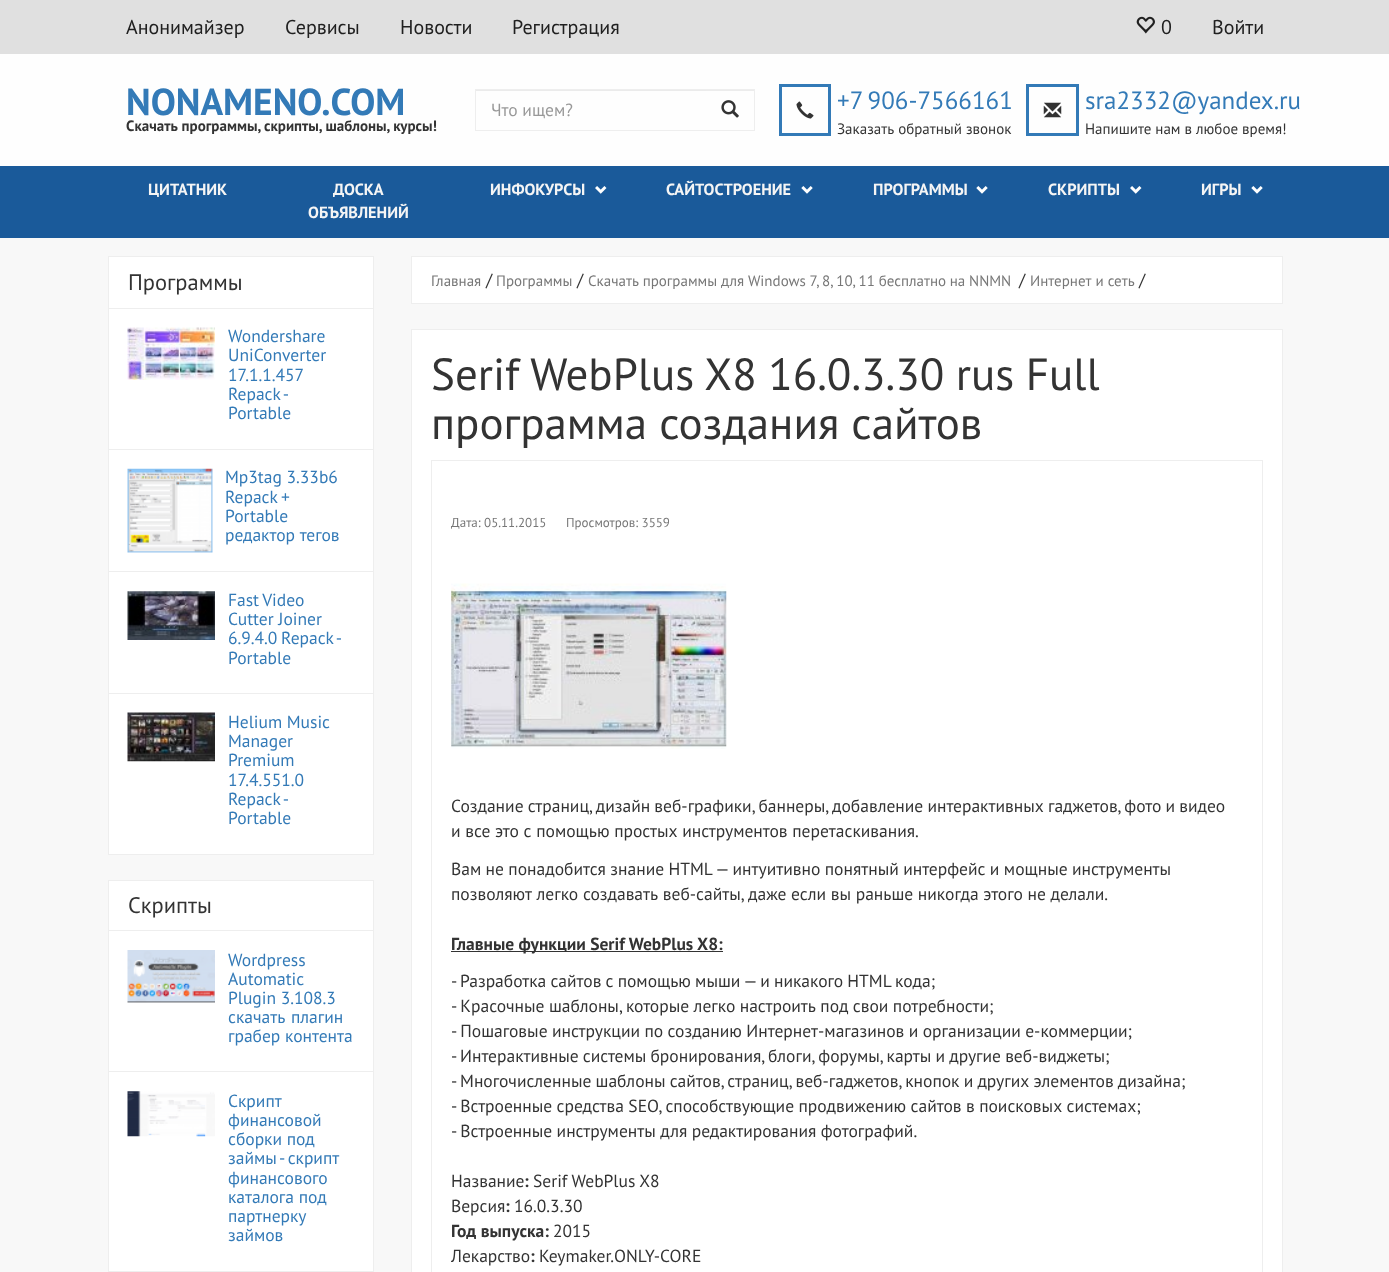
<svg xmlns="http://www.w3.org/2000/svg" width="1389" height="1272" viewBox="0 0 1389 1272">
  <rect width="100%" height="100%" fill="rgb(224,224,224)"/>
  <g font-family="PT Sans" font-size="20" fill="rgb(32,32,32)">
    <text x="126" y="34">Анонимайзер</text>
    <text x="285" y="34">Сервисы</text>
    <text x="400" y="34">Новости</text>
    <text x="512" y="34">Регистрация</text>
  </g>
  <image x="1136" y="16" width="19" height="18" href="pic1.png"/>
  <g font-family="PT Sans" font-size="20" fill="rgb(32,32,32)">
    <text x="1161" y="34">0</text>
    <text x="1212" y="34">Войти</text>
  </g>
  <rect x="0" y="54" width="1389" height="112" fill="rgb(254,254,254)"/>
  <text x="126" y="115" font-family="PT Sans" font-size="37.5" font-weight="bold" fill="rgb(51,122,183)">NONAMENO.COM</text>
  <text x="126" y="131" font-family="PT Sans" font-size="15" font-weight="bold" fill="rgb(51,51,51)">Скачать программы, скрипты, шаблоны, курсы!</text>
  <rect x="476" y="90" width="232" height="1" fill="rgb(235,235,235)"/>
  <rect x="475" y="89" width="280" height="1" fill="rgb(238,238,238)"/>
  <rect x="475" y="130" width="233" height="1" fill="rgb(238,238,238)"/>
  <rect x="475" y="89" width="1" height="42" fill="rgb(238,238,238)"/>
  <text x="491" y="116" font-family="PT Sans" font-size="17.5" fill="rgb(153,153,153)">Что ищем?</text>
  <rect x="706" y="90" width="48" height="1" fill="rgb(236,236,236)"/>
  <rect x="754" y="89" width="1" height="42" fill="rgb(238,238,238)"/>
  <rect x="706" y="130" width="49" height="1" fill="rgb(238,238,238)"/>
  <image x="721" y="100" width="18" height="18" href="pic2.png"/>
  <rect x="780.5" y="85.5" width="49" height="49" fill="none" stroke="rgb(51,122,183)" stroke-width="3"/>
  <image x="796" y="101" width="18" height="18" href="pic3.png"/>
  <text x="837" y="109" word-spacing="-1" font-family="PT Sans" font-size="25" fill="rgb(51,122,183)">+7 906-7566161</text>
  <text x="837" y="134" font-family="PT Sans" font-size="15" fill="rgb(51,51,51)">Заказать обратный звонок</text>
  <rect x="1027.5" y="85.5" width="50" height="49" fill="none" stroke="rgb(51,122,183)" stroke-width="3"/>
  <image x="1043" y="102" width="19" height="16" href="pic4.png"/>
  <text x="1085" y="109" font-family="PT Sans" font-size="25" fill="rgb(51,122,183)">sra2332@yandex.ru</text>
  <text x="1085" y="134" font-family="PT Sans" font-size="15" fill="rgb(51,51,51)">Напишите нам в любое время!</text>
  <rect x="0" y="166" width="1389" height="72" fill="rgb(26,90,154)"/>
  <g font-family="PT Sans" font-size="16.25" font-weight="bold" fill="rgb(245,245,245)">
    <text x="148" y="195">ЦИТАТНИК</text>
    <text x="333" y="195">ДОСКА</text>
    <text x="308" y="218">ОБЪЯВЛЕНИЙ</text>
    <text x="490" y="195">ИНФОКУРСЫ</text>
  </g>
  <image x="595" y="186" width="12" height="8" href="pic5.png"/>
  <text x="666" y="195" font-family="PT Sans" font-size="16.25" font-weight="bold" fill="rgb(245,245,245)">САЙТОСТРОЕНИЕ</text>
  <image x="801" y="186" width="12" height="8" href="pic6.png"/>
  <text x="873" y="195" font-family="PT Sans" font-size="16.25" font-weight="bold" fill="rgb(245,245,245)">ПРОГРАММЫ</text>
  <image x="976" y="186" width="12" height="8" href="pic6.png"/>
  <text x="1048" y="195" font-family="PT Sans" font-size="16.25" font-weight="bold" fill="rgb(245,245,245)">СКРИПТЫ</text>
  <image x="1130" y="186" width="12" height="8" href="pic5.png"/>
  <text x="1201" y="195" font-family="PT Sans" font-size="16.25" font-weight="bold" fill="rgb(245,245,245)">ИГРЫ</text>
  <image x="1251" y="186" width="12" height="8" href="pic6.png"/>
  <rect x="0" y="238" width="1389" height="1034" fill="rgb(248,248,248)"/>
  <rect x="108.5" y="256.5" width="265" height="598" fill="rgb(255,255,255)" stroke="rgb(238,238,238)"/>
  <text x="128" y="290" font-family="PT Sans" font-size="22.5" fill="rgb(51,51,51)">Программы</text>
  <rect x="109" y="308" width="264" height="1" fill="rgb(238,238,238)"/>
  <image x="127" y="327" width="88" height="53" href="pic7.png"/>
  <g font-family="PT Sans" font-size="17.5" fill="rgb(51,122,183)">
    <text>
      <tspan x="228" y="342">Wondershare</tspan>
      <tspan x="228" y="361">UniConverter</tspan>
      <tspan x="228" y="381">17.1.1.457</tspan>
      <tspan x="228" y="400" word-spacing="-1">Repack -</tspan>
      <tspan x="228" y="419">Portable</tspan>
    </text>
  </g>
  <rect x="109" y="449" width="264" height="1" fill="rgb(238,238,238)"/>
  <image x="127" y="468" width="86" height="85" href="pic8.png"/>
  <g font-family="PT Sans" font-size="17.5" fill="rgb(51,122,183)">
    <text>
      <tspan x="225" y="483">Mp3tag 3.33b6</tspan>
      <tspan x="225" y="503" word-spacing="-1">Repack +</tspan>
      <tspan x="225" y="522">Portable</tspan>
      <tspan x="225" y="541">редактор тегов</tspan>
    </text>
  </g>
  <rect x="109" y="571" width="264" height="1" fill="rgb(238,238,238)"/>
  <image x="127" y="591" width="88" height="49" href="pic9.png"/>
  <g font-family="PT Sans" font-size="17.5" fill="rgb(51,122,183)">
    <text>
      <tspan x="228" y="606" word-spacing="-1">Fast Video</tspan>
      <tspan x="228" y="625">Cutter Joiner</tspan>
      <tspan x="228" y="644" word-spacing="-1">6.9.4.0 Repack -</tspan>
      <tspan x="228" y="664">Portable</tspan>
    </text>
  </g>
  <rect x="109" y="693" width="264" height="1" fill="rgb(238,238,238)"/>
  <image x="127" y="712" width="88" height="50" href="pic10.png"/>
  <g font-family="PT Sans" font-size="17.5" fill="rgb(51,122,183)">
    <text>
      <tspan x="228" y="728">Helium Music</tspan>
      <tspan x="228" y="747">Manager</tspan>
      <tspan x="228" y="766">Premium</tspan>
      <tspan x="228" y="786">17.4.551.0</tspan>
      <tspan x="228" y="805" word-spacing="-1">Repack -</tspan>
      <tspan x="228" y="824">Portable</tspan>
    </text>
  </g>
  <rect x="109" y="881" width="264" height="390" fill="rgb(255,255,255)"/>
  <rect x="108.5" y="880.5" width="265" height="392" fill="none" stroke="rgb(238,238,238)"/>
  <text x="128" y="913" font-family="PT Sans" font-size="22.5" fill="rgb(51,51,51)">Скрипты</text>
  <rect x="109" y="930" width="264" height="1" fill="rgb(238,238,238)"/>
  <image x="127" y="950" width="88" height="53" href="pic11.png"/>
  <g font-family="PT Sans" font-size="17.5" fill="rgb(51,122,183)">
    <text>
      <tspan x="228" y="966">Wordpress</tspan>
      <tspan x="228" y="985">Automatic</tspan>
      <tspan x="228" y="1004">Plugin 3.108.3</tspan>
      <tspan x="228" y="1023" word-spacing="1">скачать плагин</tspan>
      <tspan x="228" y="1042">грабер контента</tspan>
    </text>
  </g>
  <rect x="109" y="1071" width="264" height="1" fill="rgb(238,238,238)"/>
  <image x="127" y="1091" width="88" height="46" href="pic12.png"/>
  <g font-family="PT Sans" font-size="17.5" fill="rgb(51,122,183)">
    <text>
      <tspan x="228" y="1107">Скрипт</tspan>
      <tspan x="228" y="1126">финансовой</tspan>
      <tspan x="228" y="1145">сборки под</tspan>
      <tspan x="228" y="1164" word-spacing="-1">займы - cкрипт</tspan>
      <tspan x="228" y="1184">финансового</tspan>
      <tspan x="228" y="1203">каталога под</tspan>
      <tspan x="228" y="1222">партнерку</tspan>
      <tspan x="228" y="1241">займов</tspan>
    </text>
  </g>
  <rect x="109" y="1271" width="264" height="1" fill="rgb(238,238,238)"/>
  <rect x="411.5" y="256.5" width="871" height="47" fill="rgb(255,255,255)" stroke="rgb(238,238,238)"/>
  <text x="431" y="286" font-family="PT Sans" font-size="15" fill="rgb(119,119,119)">Главная</text>
  <text x="486" y="286" font-family="PT Sans" font-size="17.5" fill="rgb(51,51,51)">/</text>
  <text x="496" y="286" font-family="PT Sans" font-size="15" fill="rgb(119,119,119)">Программы</text>
  <text x="577" y="286" font-family="PT Sans" font-size="17.5" fill="rgb(51,51,51)">/</text>
  <text x="588" y="286" word-spacing="-0.25" font-family="PT Sans" font-size="15" fill="rgb(119,119,119)">Скачать программы для Windows 7, 8, 10, 11 бесплатно на NNMN</text>
  <text x="1019" y="286" font-family="PT Sans" font-size="17.5" fill="rgb(51,51,51)">/</text>
  <text x="1030" y="286" font-family="PT Sans" font-size="15" fill="rgb(119,119,119)">Интернет и сеть</text>
  <text x="1139" y="286" font-family="PT Sans" font-size="17.5" fill="rgb(51,51,51)">/</text>
  <rect x="411.5" y="329.5" width="871" height="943" fill="rgb(255,255,255)" stroke="rgb(238,238,238)"/>
  <g font-family="PT Sans" font-size="45" fill="rgb(51,51,51)">
    <text>
      <tspan x="431" y="390" word-spacing="-0.5">Serif WebPlus X8 16.0.3.30 rus Full</tspan>
      <tspan x="431" y="439">программа создания сайтов</tspan>
    </text>
  </g>
  <rect x="431.5" y="460.5" width="831" height="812" fill="none" stroke="rgb(238,238,238)"/>
  <g font-family="PT Sans" font-size="13" fill="rgb(119,119,119)">
    <text x="451" y="527">Дата: 05.11.2015</text>
    <text x="566" y="527">Просмотров: 3559</text>
  </g>
  <image x="451" y="583" width="276" height="166" href="pic13.png"/>
  <g font-family="PT Sans" font-size="17.5" fill="rgb(51,51,51)">
    <text>
      <tspan x="451" y="812" word-spacing="-0.5">Создание страниц, дизайн веб-графики, баннеры, добавление интерактивных гаджетов, фото и видео</tspan>
      <tspan x="451" y="837">и все это с помощью простых инструментов перетаскивания.</tspan>
    </text>
    <text>
      <tspan x="451" y="875" word-spacing="-0.25">Вам не понадобится знание HTML — интуитивно понятный интерфейс и мощные инструменты</tspan>
      <tspan x="451" y="900">позволяют легко создавать веб-сайты, даже если вы раньше никогда этого не делали.</tspan>
    </text>
  </g>
  <rect x="451" y="951" width="272" height="1" fill="rgb(51,51,51)"/>
  <text x="451" y="950" font-family="PT Sans" font-size="17.5" font-weight="bold" fill="rgb(51,51,51)">Главные функции Serif WebPlus X8:</text>
  <g font-family="PT Sans" font-size="17.5" fill="rgb(51,51,51)">
    <text>
      <tspan x="451" y="987" word-spacing="-0.5">- Разработка сайтов с помощью мыши — и никакого HTML кода;</tspan>
      <tspan x="451" y="1012" word-spacing="-0.25">- Красочные шаблоны, которые легко настроить под свои потребности;</tspan>
      <tspan x="451" y="1037" word-spacing="-0.25">- Пошаговые инструкции по созданию Интернет-магазинов и организации е-коммерции;</tspan>
      <tspan x="451" y="1062" word-spacing="-0.5">- Интерактивные системы бронирования, блоги, форумы, карты и другие веб-виджеты;</tspan>
      <tspan x="451" y="1087" word-spacing="-0.5">- Многочисленные шаблоны сайтов, страниц, веб-гаджетов, кнопок и других элементов дизайна;</tspan>
      <tspan x="451" y="1112" word-spacing="-0.25">- Встроенные средства SEO, способствующие продвижению сайтов в поисковых системах;</tspan>
      <tspan x="451" y="1137" word-spacing="-0.25">- Встроенные инструменты для редактирования фотографий.</tspan>
    </text>
    <text x="451" y="1187">Название</text>
  </g>
  <text x="524" y="1187" font-family="PT Sans" font-size="17.5" font-weight="bold" fill="rgb(51,51,51)">:</text>
  <g font-family="PT Sans" font-size="17.5" fill="rgb(51,51,51)">
    <text x="533" y="1187" word-spacing="-0.25">Serif WebPlus X8</text>
    <text x="451" y="1212">Версия</text>
  </g>
  <text x="505" y="1212" font-family="PT Sans" font-size="17.5" font-weight="bold" fill="rgb(51,51,51)">:</text>
  <text x="514" y="1212" font-family="PT Sans" font-size="17.5" fill="rgb(51,51,51)">16.0.3.30</text>
  <text x="451" y="1237" font-family="PT Sans" font-size="17.5" font-weight="bold" fill="rgb(51,51,51)">Год выпуска:</text>
  <g font-family="PT Sans" font-size="17.5" fill="rgb(51,51,51)">
    <text x="553" y="1237">2015</text>
    <text x="451" y="1262">Лекарство</text>
  </g>
  <text x="530" y="1262" font-family="PT Sans" font-size="17.5" font-weight="bold" fill="rgb(51,51,51)">:</text>
  <text x="539" y="1262" font-family="PT Sans" font-size="17.5" fill="rgb(51,51,51)">Keymaker.ONLY-CORE</text>
</svg>
